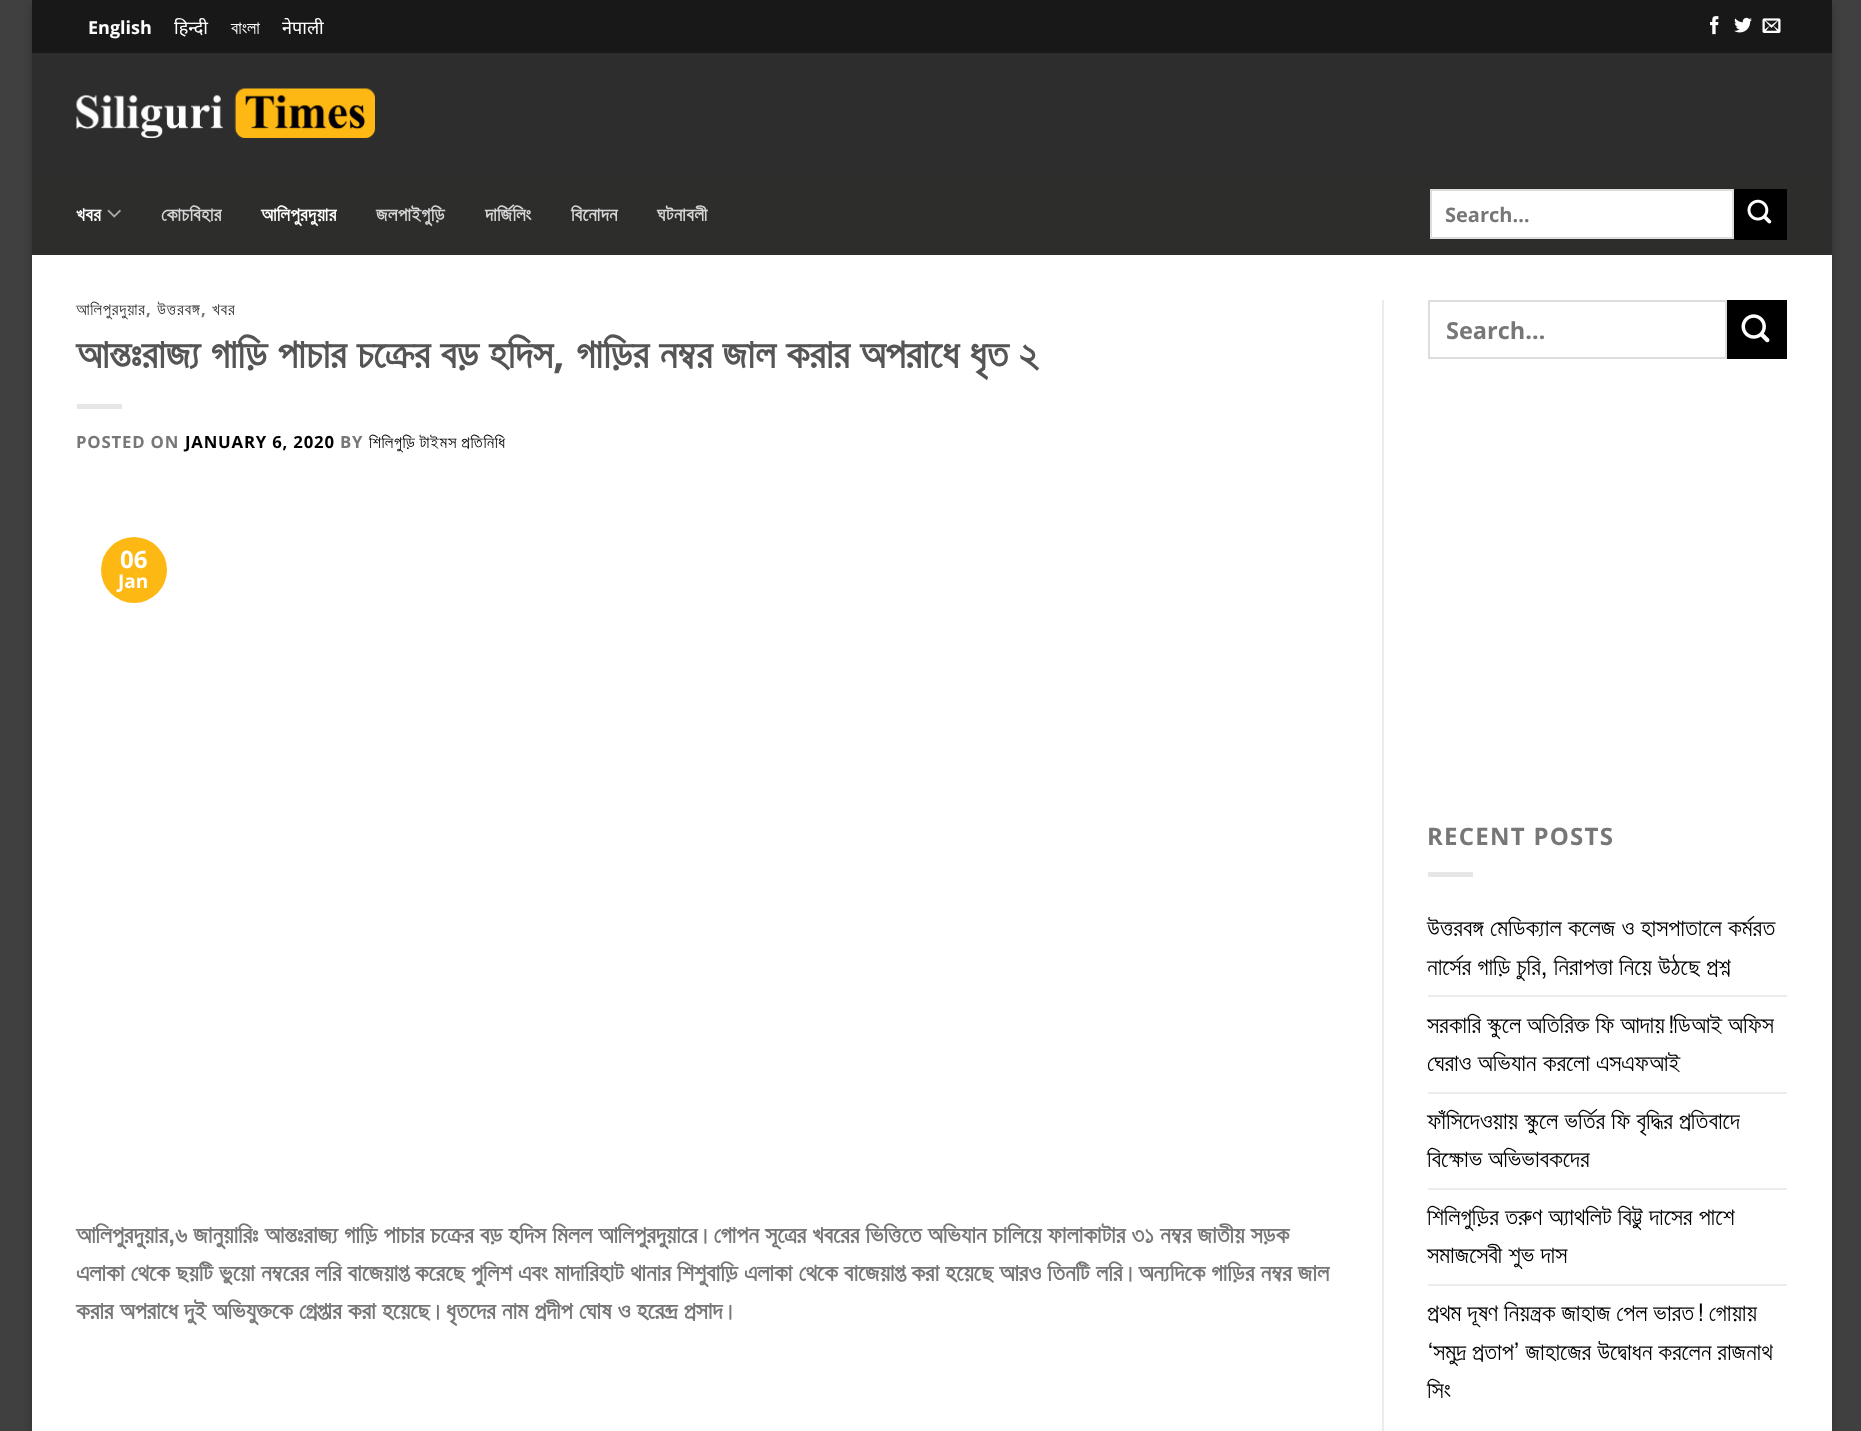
<svg xmlns="http://www.w3.org/2000/svg" width="1861" height="1431" viewBox="0 0 1861 1431">
  <rect width="100%" height="100%" fill="rgb(64,64,64)"/>
  <rect x="32" y="5" width="1800" height="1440" fill="rgba(0,0,0,0.23)" filter="blur(4.5px)"/>
  <rect x="32" y="255" width="1800" height="1176" fill="rgb(255,255,255)"/>
  <rect x="32" y="0" width="1800" height="53" fill="rgb(25,24,24)"/>
  <text x="88" y="34" font-family="Open Sans" font-size="18" font-weight="bold" fill="rgb(255,255,255)">English</text>
  <text x="174" y="34" font-family="Noto Sans" font-size="18" fill="rgb(255,255,255)">हिन्दी</text>
  <text x="231" y="34" font-family="FreeSans" font-size="18" fill="rgb(255,255,255)">বাংলা</text>
  <text x="282" y="34" font-family="Noto Sans" font-size="18" fill="rgb(255,255,255)">नेपाली</text>
  <image x="1710" y="16" width="9" height="19" href="pic1.png"/>
  <image x="1734" y="17" width="18" height="16" href="pic2.png"/>
  <image x="1762" y="18" width="19" height="15" href="pic3.png"/>
  <rect x="32" y="53" width="1800" height="120" fill="rgb(45,45,45)"/>
  <image x="76" y="88" width="299" height="50" href="pic4.png"/>
  <rect x="32" y="173" width="1800" height="82" fill="rgb(45,45,43)"/>
  <text x="76" y="221" font-family="FreeSans" font-size="19" font-weight="bold" letter-spacing="0.4" fill="rgb(255,255,255)">খবর</text>
  <image x="107" y="209" width="14" height="9" href="pic5.png"/>
  <text x="161" y="221" font-family="FreeSans" font-size="19" font-weight="bold" letter-spacing="0.4" fill="rgb(213,213,213)">কোচবিহার</text>
  <text x="261" y="221" font-family="FreeSans" font-size="19" font-weight="bold" letter-spacing="0.4" fill="rgb(255,255,255)">আলিপুরদুয়ার</text>
  <g font-family="FreeSans" font-size="19" font-weight="bold" letter-spacing="0.4" fill="rgb(213,213,213)">
    <text x="376" y="221">জলপাইগুড়ি</text>
    <text x="485" y="221">দার্জিলিং</text>
    <text x="571" y="221">বিনোদন</text>
    <text x="657" y="221">ঘটনাবলী</text>
  </g>
  <rect x="1431" y="190" width="302" height="48" fill="rgb(255,255,255)" stroke="rgb(221,221,221)" stroke-width="2"/>
  <text x="1445" y="222" font-family="Open Sans" font-size="20" font-weight="bold" fill="rgb(119,119,119)">Search…</text>
  <rect x="1734" y="189" width="53" height="51" fill="rgb(0,0,0)"/>
  <image x="1747" y="199" width="25" height="25" href="pic6.png"/>
  <g font-family="FreeSans" font-size="16.75" letter-spacing="0.8" fill="rgb(51,51,51)">
    <text x="76" y="315">আলিপুরদুয়ার</text>
    <text x="157" y="315">উত্তরবঙ্গ</text>
    <text x="212" y="315">খবর</text>
  </g>
  <g font-family="Open Sans" font-size="16.75" font-weight="bold" letter-spacing="0.8" fill="rgb(119,119,119)">
    <text x="146" y="315">,</text>
    <text x="201" y="315">,</text>
  </g>
  <text x="76" y="368" word-spacing="0.25" font-family="FreeSans" font-size="40.75" font-weight="bold" fill="rgb(85,85,85)">আন্তঃরাজ্য গাড়ি পাচার চক্রের বড় হদিস</text>
  <text x="553" y="368" font-family="Open Sans" font-size="40.75" font-weight="bold" fill="rgb(85,85,85)">,</text>
  <text x="576" y="368" word-spacing="0.25" font-family="FreeSans" font-size="40.75" font-weight="bold" fill="rgb(85,85,85)">গাড়ির নম্বর জাল করার অপরাধে ধৃত ২</text>
  <rect x="77" y="404" width="45" height="5" fill="rgb(230,230,230)"/>
  <text x="76" y="448" font-family="Open Sans" font-size="16.75" font-weight="bold" letter-spacing="0.8" fill="rgb(119,119,119)">POSTED ON</text>
  <text x="185" y="448" font-family="Open Sans" font-size="16.75" font-weight="bold" letter-spacing="0.8" fill="rgb(0,0,0)">JANUARY 6, 2020</text>
  <text x="340" y="448" font-family="Open Sans" font-size="16.75" font-weight="bold" letter-spacing="0.8" fill="rgb(119,119,119)">BY</text>
  <text x="369" y="448" word-spacing="-1" font-family="FreeSans" font-size="16.75" letter-spacing="0.8" fill="rgb(0,0,0)">শিলিগুড়ি টাইমস প্রতিনিধি</text>
  <circle cx="134" cy="570" r="33" fill="rgb(253,184,19)"/>
  <text x="120" y="568" font-family="Open Sans" font-size="24" font-weight="bold" fill="rgb(255,255,255)">06</text>
  <text x="118" y="588" font-family="Open Sans" font-size="19" font-weight="bold" fill="rgb(255,255,255)">Jan</text>
  <g font-family="FreeSans" font-size="24" font-weight="bold" fill="rgb(119,119,119)">
    <text>
      <tspan x="76" y="1243" word-spacing="0.25">আলিপুরদুয়ার,৬ জানুয়ারিঃ আন্তঃরাজ্য গাড়ি পাচার চক্রের বড় হদিস মিলল আলিপুরদুয়ারে।গোপন সূত্রের খবরের ভিত্তিতে অভিযান চালিয়ে ফালাকাটার ৩১ নম্বর জাতীয় সড়ক</tspan>
      <tspan x="76" y="1281" word-spacing="0.25">এলাকা থেকে ছয়টি ভুয়ো নম্বরের লরি বাজেয়াপ্ত করেছে পুলিশ এবং মাদারিহাট থানার শিশুবাড়ি এলাকা থেকে বাজেয়াপ্ত করা হয়েছে আরও তিনটি লরি।অন্যদিকে গাড়ির নম্বর জাল</tspan>
      <tspan x="76" y="1319" word-spacing="0.25">করার অপরাধে দুই অভিযুক্তকে গ্রেপ্তার করা হয়েছে।ধৃতদের নাম প্রদীপ ঘোষ ও হরেন্দ্র প্রসাদ।</tspan>
    </text>
  </g>
  <rect x="1382" y="300" width="2" height="1131" fill="rgb(236,236,236)"/>
  <rect x="1429" y="301" width="297" height="57" fill="none" stroke="rgb(221,221,221)" stroke-width="2"/>
  <text x="1446" y="339" font-family="Open Sans" font-size="23.5" font-weight="bold" fill="rgb(119,119,119)">Search…</text>
  <rect x="1727" y="300" width="60" height="59" fill="rgb(0,0,0)"/>
  <image x="1741" y="314" width="29" height="29" href="pic7.png"/>
  <text x="1427" y="845" font-family="Open Sans" font-size="24" font-weight="bold" letter-spacing="1.25" fill="rgb(119,119,119)">RECENT POSTS</text>
  <rect x="1428" y="872" width="45" height="5" fill="rgb(230,230,230)"/>
  <g font-family="FreeSans" font-size="24" fill="rgb(0,0,0)">
    <text>
      <tspan x="1427" y="936" word-spacing="0.25">উত্তরবঙ্গ মেডিক্যাল কলেজ ও হাসপাতালে কর্মরত</tspan>
      <tspan x="1427" y="975" word-spacing="0.25">নার্সের গাড়ি চুরি, নিরাপত্তা নিয়ে উঠছে প্রশ্ন</tspan>
    </text>
  </g>
  <rect x="1428" y="995" width="359" height="2" fill="rgb(236,236,236)"/>
  <g font-family="FreeSans" font-size="24" fill="rgb(0,0,0)">
    <text>
      <tspan x="1427" y="1033">সরকারি স্কুলে অতিরিক্ত ফি আদায়!ডিআই অফিস</tspan>
      <tspan x="1427" y="1071" word-spacing="0.25">ঘেরাও অভিযান করলো এসএফআই</tspan>
    </text>
  </g>
  <rect x="1428" y="1092" width="359" height="2" fill="rgb(236,236,236)"/>
  <g font-family="FreeSans" font-size="24" fill="rgb(0,0,0)">
    <text>
      <tspan x="1427" y="1129" word-spacing="0.25">ফাঁসিদেওয়ায় স্কুলে ভর্তির ফি বৃদ্ধির প্রতিবাদে</tspan>
      <tspan x="1427" y="1167">বিক্ষোভ অভিভাবকদের</tspan>
    </text>
  </g>
  <rect x="1428" y="1188" width="359" height="2" fill="rgb(236,236,236)"/>
  <g font-family="FreeSans" font-size="24" fill="rgb(0,0,0)">
    <text>
      <tspan x="1427" y="1225" word-spacing="0.25">শিলিগুড়ির তরুণ অ্যাথলিট বিট্টু দাসের পাশে</tspan>
      <tspan x="1427" y="1263" word-spacing="0.25">সমাজসেবী শুভ দাস</tspan>
    </text>
  </g>
  <rect x="1428" y="1284" width="359" height="2" fill="rgb(236,236,236)"/>
  <g font-family="FreeSans" font-size="24" fill="rgb(0,0,0)">
    <text>
      <tspan x="1427" y="1321">প্রথম দূষণ নিয়ন্ত্রক জাহাজ পেল ভারত! গোয়ায়</tspan>
      <tspan x="1427" y="1360">‘সমুদ্র প্রতাপ’ জাহাজের উদ্বোধন করলেন রাজনাথ</tspan>
      <tspan x="1427" y="1398">সিং</tspan>
    </text>
  </g>
</svg>
